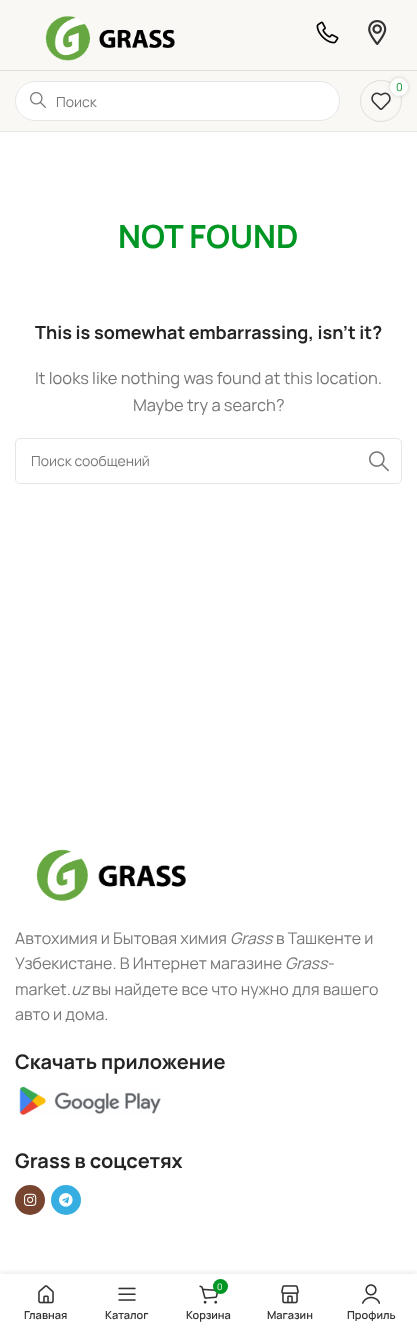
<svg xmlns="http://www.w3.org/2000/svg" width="417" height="1329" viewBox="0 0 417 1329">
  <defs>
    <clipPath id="clip1"><rect x="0" y="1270" width="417" height="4"/></clipPath>
    <clipPath id="clip2"><rect x="341" y="1308" width="61" height="13"/></clipPath>
  </defs>
  <rect width="100%" height="100%" fill="rgb(255,255,255)"/>
  <rect x="0" y="0" width="417" height="70" fill="rgb(250,248,245)"/>
  <rect x="0" y="70" width="417" height="1" fill="rgb(223,221,218)"/>
  <image x="45" y="16" width="130" height="45" href="pic1.png"/>
  <image x="316" y="21" width="23" height="23" href="pic2.png"/>
  <image x="368" y="20" width="19" height="25" href="pic3.png"/>
  <rect x="0" y="71" width="417" height="60" fill="rgb(250,248,245)"/>
  <rect x="0" y="131" width="417" height="1" fill="rgb(232,231,228)"/>
  <circle cx="381" cy="101" r="20.5" fill="none" stroke="rgb(224,222,219)"/>
  <image x="371" y="92" width="20" height="18" href="pic4.png"/>
  <rect x="390" y="78" width="18" height="18" rx="9" fill="rgba(0,0,0,0.17)" filter="blur(2px)"/>
  <circle cx="399" cy="87" r="9" fill="rgb(255,255,255)"/>
  <text x="396" y="91" font-family="Manrope" font-size="11" fill="rgb(0,150,36)">0</text>
  <rect x="15" y="81" width="325" height="40" rx="20" fill="rgb(255,255,255)"/>
  <rect x="15.5" y="81.5" width="324" height="39" rx="19.5" fill="none" stroke="rgba(0,0,0,0.1)"/>
  <image x="30" y="92" width="16" height="16" href="pic5.png"/>
  <text x="56" y="107" font-family="Manrope" font-size="14" fill="rgb(119,119,119)">Поиск</text>
  <text x="118" y="248" font-family="Manrope" font-size="32" font-weight="bold" fill="rgb(0,150,36)">NOT FOUND</text>
  <text x="35" y="339" font-family="Manrope" font-size="18" font-weight="bold" fill="rgb(36,36,36)">This is somewhat embarrassing, isn’t it?</text>
  <g font-family="Manrope" font-size="16.5" fill="rgb(119,119,119)">
    <text x="35" y="384">It looks like nothing was found at this location.</text>
    <text x="133" y="411">Maybe try a search?</text>
  </g>
  <rect x="15.5" y="438.5" width="386" height="45" rx="4.5" fill="none" stroke="rgb(230,230,230)"/>
  <text x="31" y="466" font-family="Manrope" font-size="14" fill="rgb(119,119,119)">Поиск сообщений</text>
  <image x="369" y="451" width="20" height="21" href="pic6.png"/>
  <image x="36" y="849" width="150" height="52" href="pic7.png"/>
  <text x="15" y="944" font-family="Manrope" font-size="16" fill="rgb(119,119,119)">Автохимия и Бытовая химия</text>
  <text x="230" y="944" font-family="Manrope" font-size="16" font-style="italic" fill="rgb(119,119,119)">Grass</text>
  <g font-family="Manrope" font-size="16" fill="rgb(119,119,119)">
    <text x="276" y="944">в Ташкенте и</text>
    <text x="15" y="969">Узбекистане. В Интернет магазине</text>
  </g>
  <text x="285" y="969" font-family="Manrope" font-size="16" font-style="italic" fill="rgb(119,119,119)">Grass</text>
  <g font-family="Manrope" font-size="16" fill="rgb(119,119,119)">
    <text x="328" y="969">-</text>
    <text x="15" y="995">market.</text>
  </g>
  <text x="71" y="995" font-family="Manrope" font-size="16" font-style="italic" fill="rgb(119,119,119)">uz</text>
  <g font-family="Manrope" font-size="16" fill="rgb(119,119,119)">
    <text x="92" y="995">вы найдете все что нужно для вашего</text>
    <text x="15" y="1020">авто и дома.</text>
  </g>
  <text x="15" y="1069" font-family="Manrope" font-size="20" font-weight="bold" fill="rgb(36,36,36)">Скачать приложение</text>
  <image x="19" y="1086" width="142" height="29" href="pic8.png"/>
  <text x="15" y="1168" font-family="Manrope" font-size="20" font-weight="bold" fill="rgb(36,36,36)">Grass в соцсетях</text>
  <circle cx="30" cy="1200" r="15" fill="rgb(119,68,48)"/>
  <image x="24" y="1193" width="13" height="13" href="pic9.png"/>
  <circle cx="66" cy="1200" r="15" fill="rgb(55,174,226)"/>
  <image x="59" y="1193" width="14" height="14" href="pic10.png"/>
  <g clip-path="url(#clip1)">
    <rect x="0" y="1274" width="417" height="55" fill="rgba(0,0,0,0.12)" filter="blur(4.5px)"/>
  </g>
  <image x="38" y="1285" width="16" height="19" href="pic11.png"/>
  <text x="24" y="1319" font-family="Manrope" font-size="11" font-weight="600" fill="rgb(51,51,51)">Главная</text>
  <image x="118" y="1287" width="18" height="14" href="pic12.png"/>
  <text x="105" y="1319" font-family="Manrope" font-size="11" font-weight="600" fill="rgb(51,51,51)">Каталог</text>
  <image x="199" y="1285" width="19" height="19" href="pic13.png"/>
  <circle cx="220.5" cy="1286.5" r="7.5" fill="rgb(0,150,36)"/>
  <text x="217" y="1290" font-family="Manrope" font-size="9" fill="rgb(255,255,255)">0</text>
  <text x="186" y="1319" font-family="Manrope" font-size="11" font-weight="600" fill="rgb(51,51,51)">Корзина</text>
  <image x="281" y="1285" width="18" height="19" href="pic14.png"/>
  <text x="267" y="1319" font-family="Manrope" font-size="11" font-weight="600" fill="rgb(51,51,51)">Магазин</text>
  <image x="362" y="1284" width="18" height="20" href="pic15.png"/>
  <g clip-path="url(#clip2)">
    <text x="347" y="1319" font-family="Manrope" font-size="11" font-weight="600" fill="rgb(51,51,51)">Профиль</text>
  </g>
</svg>
